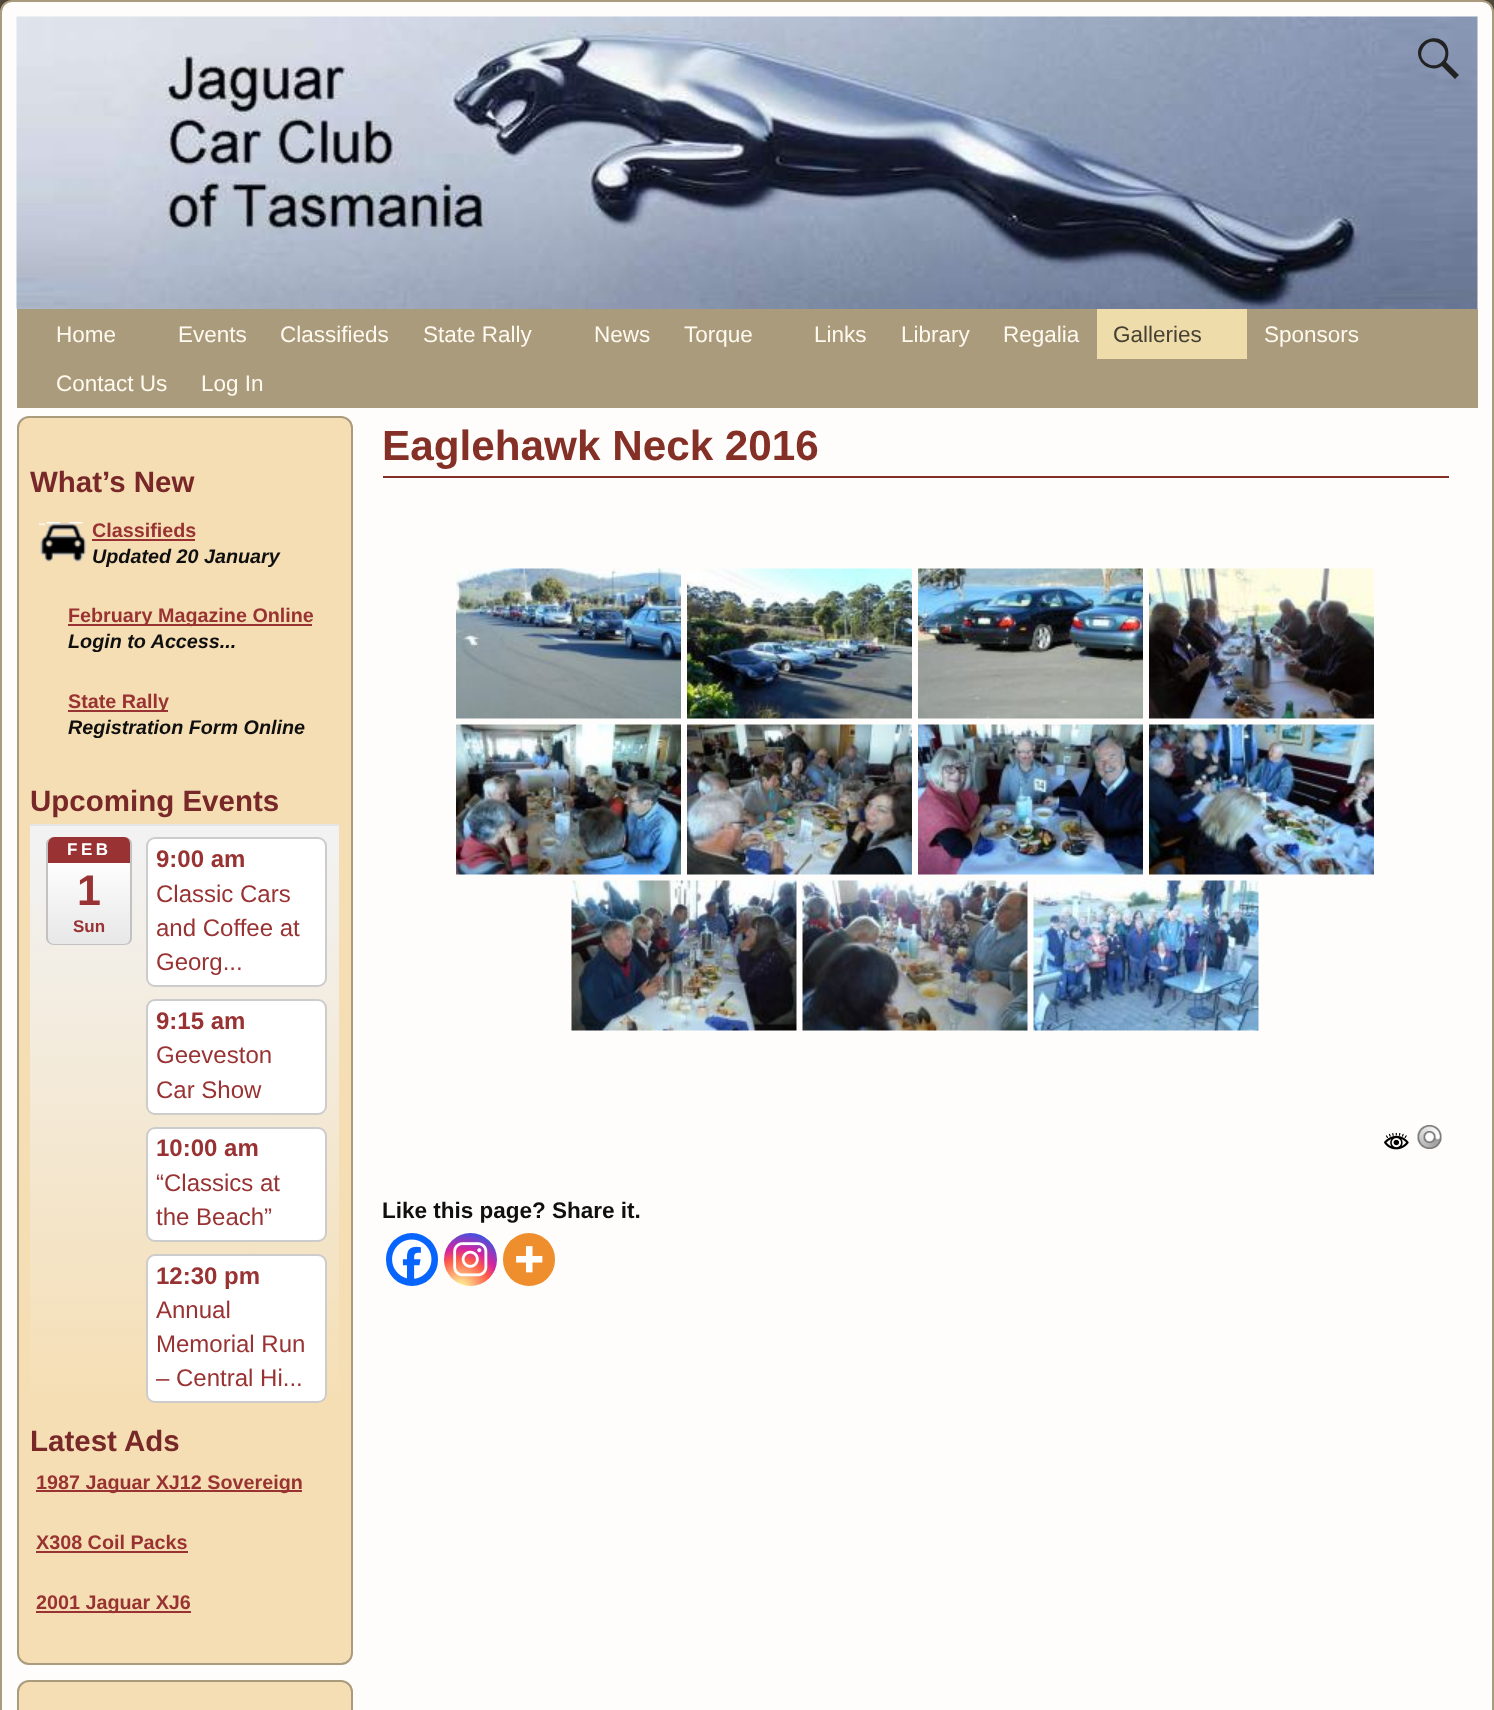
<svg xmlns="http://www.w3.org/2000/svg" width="1494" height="1710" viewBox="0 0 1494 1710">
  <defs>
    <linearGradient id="g1" gradientUnits="userSpaceOnUse" x1="184" y1="825" x2="185" y2="1415"><stop offset="0" stop-color="rgb(242,242,242)"/><stop offset="0.04" stop-color="rgb(242,242,242)"/><stop offset="1" stop-color="rgb(245,222,179)"/></linearGradient>
    <clipPath id="clip1"><rect x="47" y="837" width="85" height="108" rx="8"/></clipPath>
    <linearGradient id="g2" gradientUnits="userSpaceOnUse" x1="89" y1="837" x2="89" y2="944"><stop offset="0" stop-color="rgb(255,255,255)"/><stop offset="0.2" stop-color="rgb(255,255,255)"/><stop offset="1" stop-color="rgb(231,231,231)"/></linearGradient>
    <radialGradient id="g3" gradientUnits="userSpaceOnUse" cx="460" cy="1289" r="67"><stop offset="0" stop-color="rgb(253,244,151)"/><stop offset="0.05" stop-color="rgb(253,244,151)"/><stop offset="0.45" stop-color="rgb(253,89,73)"/><stop offset="0.6" stop-color="rgb(214,36,159)"/><stop offset="0.9" stop-color="rgb(40,90,235)"/></radialGradient>
  </defs>
  <rect width="100%" height="100%" fill="rgb(209,189,153)"/>
  <image x="0" y="0" width="1494" height="12" href="pic1.png"/>
  <rect x="-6" y="-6" width="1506" height="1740" rx="18" fill="rgba(0,0,0,0.25)" filter="blur(2px)"/>
  <rect x="1" y="1" width="1492" height="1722" rx="11" fill="rgb(254,253,251)" stroke="rgb(171,155,125)" stroke-width="2"/>
  <image x="16" y="16" width="1462" height="293" href="pic2.png"/>
  <path d="M1459 75L1455 79L1442 66C1435 71 1424 68 1420 60C1410 41 1442 28 1448 49C1449 54 1448 59 1446 62ZM1423 48C1415 61 1436 73 1444 59C1451 46 1431 34 1423 48Z" fill="rgb(34,34,34)"/>
  <rect x="17" y="309" width="1461" height="99" fill="rgb(171,155,125)"/>
  <g font-family="Liberation Sans" font-size="22.5" fill="rgb(255,250,239)">
    <text x="56" y="342">Home</text>
    <text x="178" y="342">Events</text>
    <text x="280" y="342">Classifieds</text>
    <text x="423" y="342">State Rally</text>
    <text x="594" y="342">News</text>
    <text x="684" y="342">Torque</text>
    <text x="814" y="342">Links</text>
    <text x="901" y="342">Library</text>
    <text x="1003" y="342">Regalia</text>
  </g>
  <rect x="1097" y="309" width="150" height="50" fill="rgb(238,221,170)"/>
  <text x="1113" y="342" font-family="Liberation Sans" font-size="22.5" fill="rgb(71,65,52)">Galleries</text>
  <g font-family="Liberation Sans" font-size="22.5" fill="rgb(255,250,239)">
    <text x="1264" y="342">Sponsors</text>
    <text x="56" y="391">Contact Us</text>
    <text x="201" y="391">Log In</text>
  </g>
  <rect x="18" y="417" width="334" height="1247" rx="11" fill="rgb(245,222,179)" stroke="rgb(171,155,125)" stroke-width="2"/>
  <text x="30" y="492" font-family="Liberation Sans" font-size="29.5" font-weight="bold" fill="rgb(120,40,40)">What’s New</text>
  <image x="39" y="522" width="47" height="40" href="pic3.png"/>
  <text x="92" y="537" font-family="Liberation Sans" font-size="19.75" font-weight="bold" fill="rgb(153,51,51)">Classifieds</text>
  <rect x="92" y="539" width="103" height="2" fill="rgb(153,51,51)"/>
  <text x="92" y="563" font-family="Liberation Sans" font-size="19.75" font-weight="bold" font-style="italic" fill="rgb(15,15,15)">Updated 20 January</text>
  <rect x="68" y="624" width="244" height="2" fill="rgb(153,51,51)"/>
  <text x="68" y="622" font-family="Liberation Sans" font-size="19.75" font-weight="bold" fill="rgb(153,51,51)">February Magazine Online</text>
  <text x="68" y="648" font-family="Liberation Sans" font-size="19.75" font-weight="bold" font-style="italic" fill="rgb(15,15,15)">Login to Access...</text>
  <rect x="68" y="710" width="100" height="2" fill="rgb(153,51,51)"/>
  <text x="68" y="708" font-family="Liberation Sans" font-size="19.75" font-weight="bold" fill="rgb(153,51,51)">State Rally</text>
  <text x="68" y="734" font-family="Liberation Sans" font-size="19.75" font-weight="bold" font-style="italic" fill="rgb(15,15,15)">Registration Form Online</text>
  <text x="30" y="811" font-family="Liberation Sans" font-size="29.5" font-weight="bold" fill="rgb(120,40,40)">Upcoming Events</text>
  <rect x="30" y="826" width="309" height="567" fill="url(#g1)"/>
  <rect x="30" y="824" width="309" height="2" fill="rgb(229,229,229)"/>
  <g clip-path="url(#clip1)">
    <rect x="48" y="837" width="83" height="107" fill="url(#g2)"/>
  </g>
  <path d="M54 837H124C129 837 132 840 132 844V938C132 942 129 945 124 945H54C50 945 46 942 46 938V844C46 840 50 837 54 837ZM54 837H124C128 837 130 840 130 844V938C130 941 128 944 124 944H54C51 944 48 941 48 938V844C48 840 51 837 54 837Z" fill="rgb(194,194,194)" fill-rule="evenodd"/>
  <path d="M54 837C51 837 48 840 48 844V863H130V844C130 840 128 837 124 837Z" fill="rgb(153,51,51)"/>
  <text x="67" y="855" font-family="Liberation Sans" font-size="17" font-weight="bold" letter-spacing="3.5" fill="rgb(255,255,255)">FEB</text>
  <text x="77" y="905" font-family="Liberation Sans" font-size="43" font-weight="bold" fill="rgb(153,51,51)">1</text>
  <text x="73" y="932" font-family="Liberation Sans" font-size="17" font-weight="bold" fill="rgb(153,51,51)">Sun</text>
  <rect x="147" y="838" width="179" height="148" rx="8" fill="rgb(255,255,255)" stroke="rgb(204,204,204)" stroke-width="2"/>
  <text x="156" y="867" font-family="Liberation Sans" font-size="24" font-weight="bold" fill="rgb(153,51,51)">9:00 am</text>
  <g font-family="Liberation Sans" font-size="24" fill="rgb(153,51,51)">
    <text>
      <tspan x="156" y="902">Classic Cars</tspan>
      <tspan x="156" y="936">and Coffee at</tspan>
      <tspan x="156" y="970">Georg...</tspan>
    </text>
  </g>
  <rect x="147" y="1000" width="179" height="114" rx="8" fill="rgb(255,255,255)" stroke="rgb(204,204,204)" stroke-width="2"/>
  <text x="156" y="1029" font-family="Liberation Sans" font-size="24" font-weight="bold" fill="rgb(153,51,51)">9:15 am</text>
  <g font-family="Liberation Sans" font-size="24" fill="rgb(153,51,51)">
    <text>
      <tspan x="156" y="1063">Geeveston</tspan>
      <tspan x="156" y="1098">Car Show</tspan>
    </text>
  </g>
  <rect x="147" y="1128" width="179" height="113" rx="8" fill="rgb(255,255,255)" stroke="rgb(204,204,204)" stroke-width="2"/>
  <text x="156" y="1156" font-family="Liberation Sans" font-size="24" font-weight="bold" fill="rgb(153,51,51)">10:00 am</text>
  <g font-family="Liberation Sans" font-size="24" fill="rgb(153,51,51)">
    <text>
      <tspan x="156" y="1191">“Classics at</tspan>
      <tspan x="156" y="1225">the Beach”</tspan>
    </text>
  </g>
  <rect x="147" y="1255" width="179" height="147" rx="8" fill="rgb(255,255,255)" stroke="rgb(204,204,204)" stroke-width="2"/>
  <text x="156" y="1284" font-family="Liberation Sans" font-size="24" font-weight="bold" fill="rgb(153,51,51)">12:30 pm</text>
  <g font-family="Liberation Sans" font-size="24" fill="rgb(153,51,51)">
    <text>
      <tspan x="156" y="1318">Annual</tspan>
      <tspan x="156" y="1352">Memorial Run</tspan>
      <tspan x="156" y="1386">– Central Hi...</tspan>
    </text>
  </g>
  <text x="30" y="1451" font-family="Liberation Sans" font-size="29.5" font-weight="bold" fill="rgb(120,40,40)">Latest Ads</text>
  <rect x="36" y="1490" width="266" height="2" fill="rgb(153,51,51)"/>
  <g font-family="Liberation Sans" font-size="19.75" font-weight="bold" fill="rgb(153,51,51)">
    <text x="36" y="1489">1987 Jaguar XJ12 Sovereign</text>
    <text x="36" y="1549">X308 Coil Packs</text>
  </g>
  <rect x="36" y="1551" width="152" height="2" fill="rgb(153,51,51)"/>
  <rect x="36" y="1611" width="155" height="2" fill="rgb(153,51,51)"/>
  <text x="36" y="1609" font-family="Liberation Sans" font-size="19.75" font-weight="bold" fill="rgb(153,51,51)">2001 Jaguar XJ6</text>
  <rect x="18" y="1681" width="334" height="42" rx="11" fill="rgb(245,222,179)" stroke="rgb(171,155,125)" stroke-width="2"/>
  <rect x="383" y="476" width="1066" height="2" fill="rgb(133,48,38)"/>
  <text x="382" y="460" font-family="Liberation Sans" font-size="42.25" font-weight="bold" fill="rgb(133,48,38)">Eaglehawk Neck 2016</text>
  <image x="456" y="568" width="225" height="151" href="pic4.png"/>
  <image x="687" y="568" width="225" height="151" href="pic5.png"/>
  <image x="918" y="568" width="225" height="151" href="pic6.png"/>
  <image x="1149" y="568" width="225" height="151" href="pic7.png"/>
  <image x="456" y="724" width="225" height="151" href="pic8.png"/>
  <image x="687" y="724" width="225" height="151" href="pic9.png"/>
  <image x="918" y="724" width="225" height="151" href="pic10.png"/>
  <image x="1149" y="724" width="225" height="151" href="pic11.png"/>
  <image x="571" y="880" width="226" height="151" href="pic12.png"/>
  <image x="802" y="880" width="226" height="151" href="pic13.png"/>
  <image x="1033" y="880" width="226" height="151" href="pic14.png"/>
  <image x="1384" y="1133" width="25" height="17" href="pic15.png"/>
  <image x="1417" y="1125" width="25" height="24" href="pic16.png"/>
  <text x="382" y="1218" font-family="Liberation Sans" font-size="22.5" font-weight="bold" fill="rgb(15,15,15)">Like this page? Share it.</text>
  <rect x="386" y="1233" width="52" height="53" rx="26" fill="rgb(7,101,254)"/>
  <image x="392" y="1239" width="40" height="40" href="pic17.png"/>
  <circle cx="470.5" cy="1259.5" r="26.5" fill="url(#g3)"/>
  <image x="453" y="1242" width="35" height="35" href="pic18.png"/>
  <rect x="503" y="1233" width="52" height="53" rx="26" fill="rgb(238,142,45)"/>
  <image x="516" y="1246" width="27" height="27" href="pic19.png"/>
</svg>
